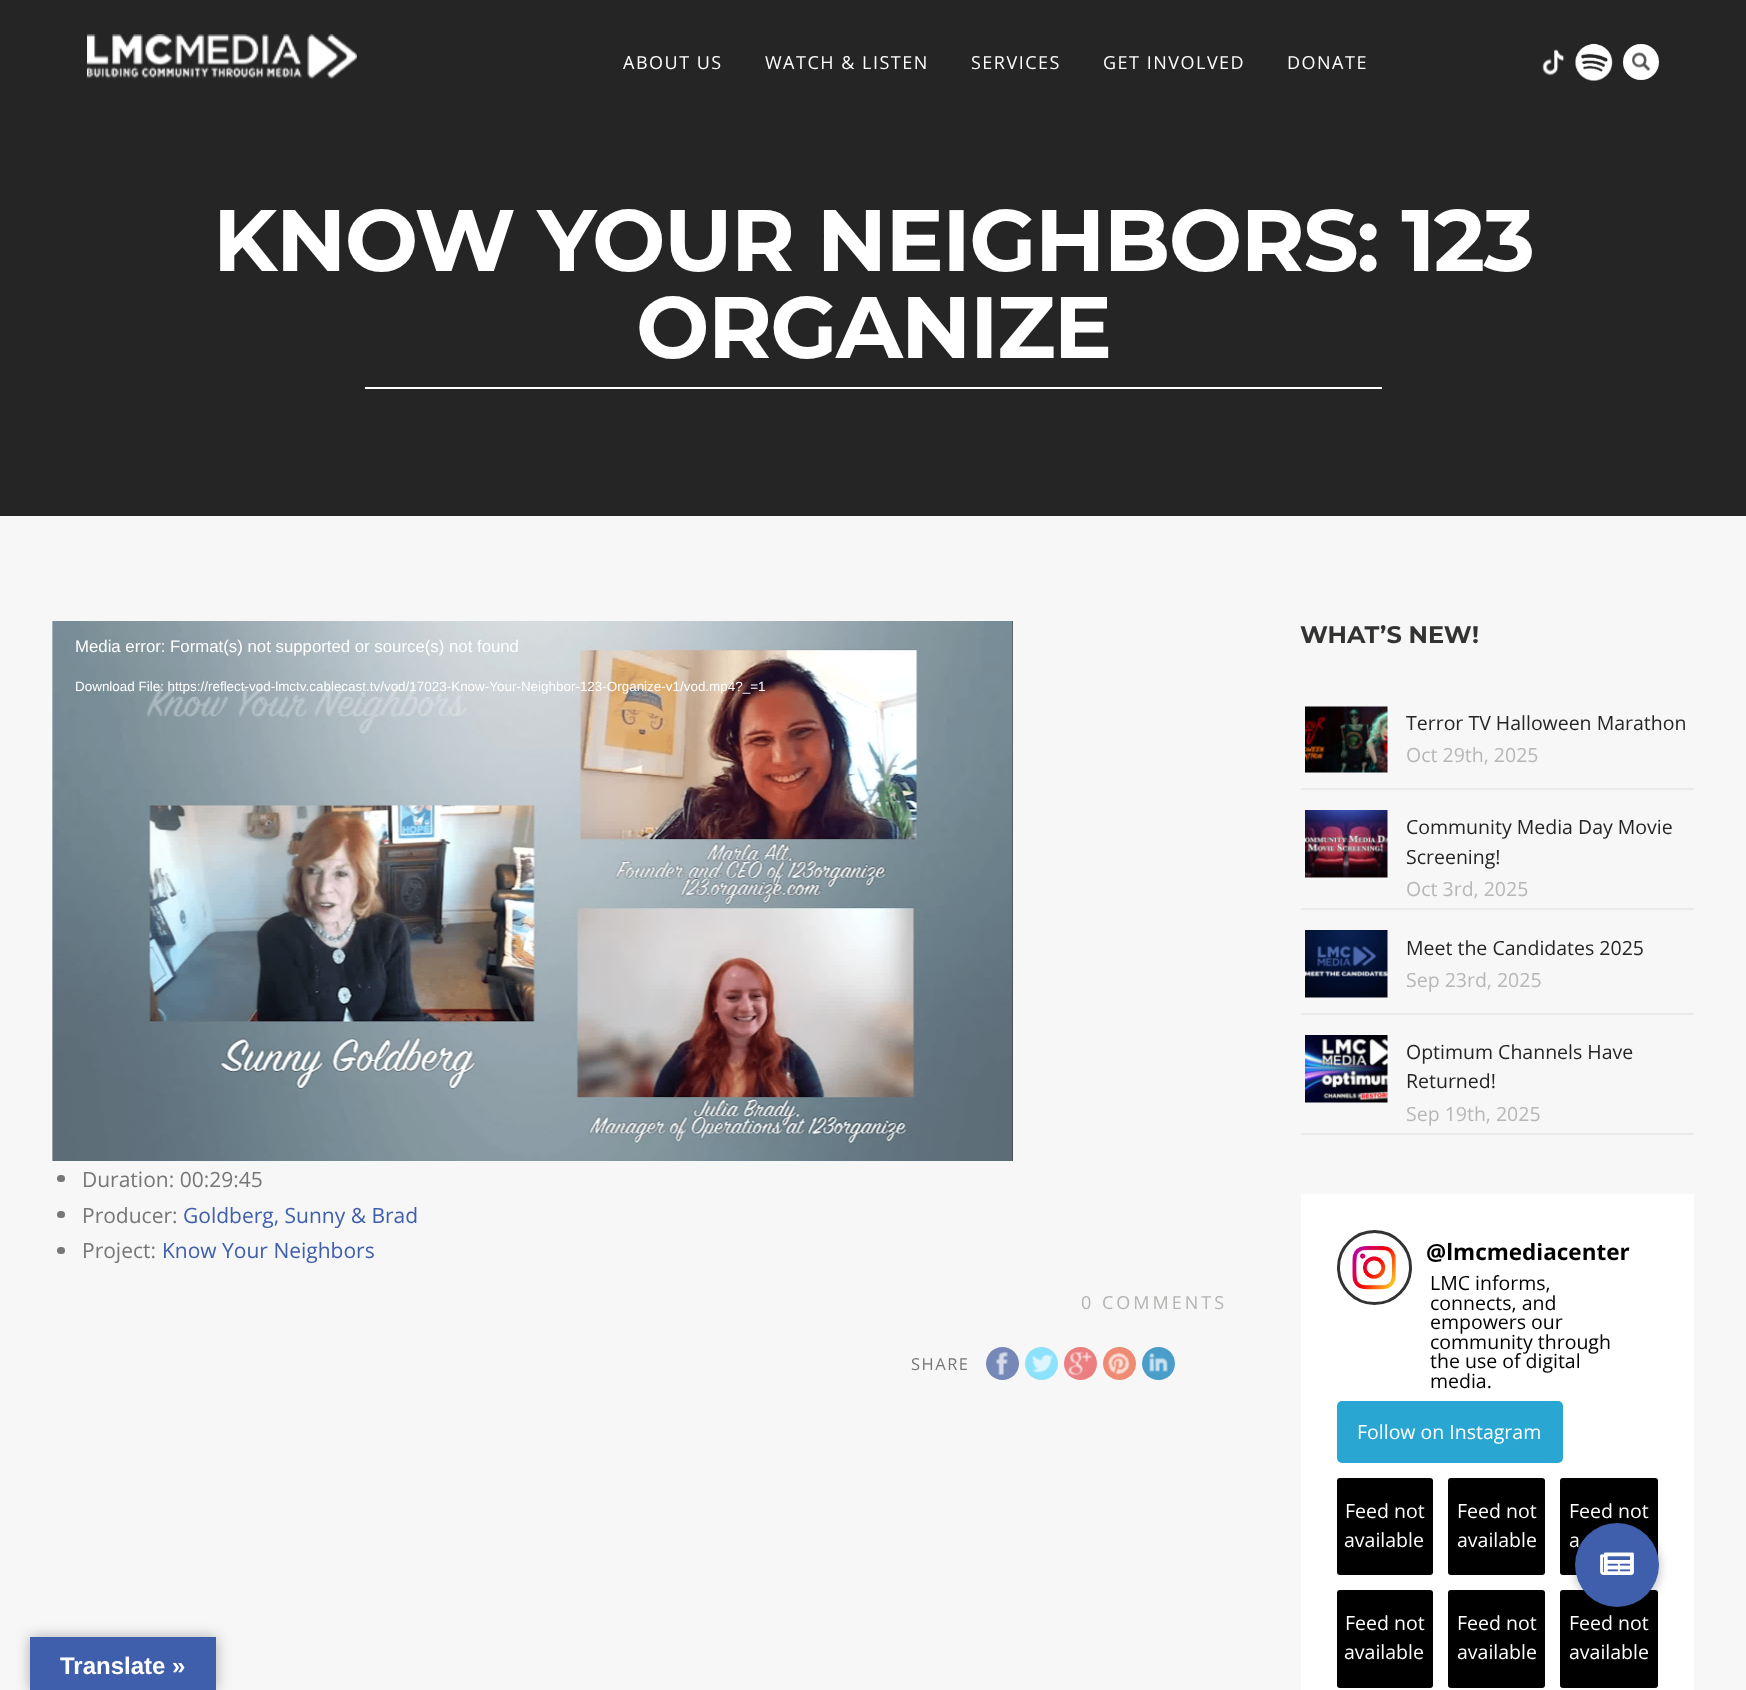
<svg xmlns="http://www.w3.org/2000/svg" width="1746" height="1690" viewBox="0 0 1746 1690">
  <rect width="100%" height="100%" fill="rgb(247,247,247)"/>
  <rect x="0" y="0" width="1746" height="516" fill="rgb(37,37,37)"/>
  <image x="87" y="34" width="270" height="45" href="pic1.png"/>
  <g font-family="Open Sans" font-size="18" letter-spacing="1.5" fill="rgb(255,255,255)">
    <text x="623" y="69">ABOUT US</text>
    <text x="765" y="69">WATCH &amp; LISTEN</text>
    <text x="971" y="69">SERVICES</text>
    <text x="1103" y="69">GET INVOLVED</text>
    <text x="1287" y="69">DONATE</text>
  </g>
  <image x="1542" y="49" width="23" height="27" href="pic2.png"/>
  <image x="1575" y="43" width="38" height="38" href="pic3.png"/>
  <circle cx="1641" cy="62" r="18" fill="rgb(255,255,255)"/>
  <image x="1632" y="52" width="18" height="19" href="pic4.png"/>
  <g font-family="Montserrat" font-size="87" font-weight="bold" letter-spacing="-1.5" fill="rgb(255,255,255)">
    <text x="213" y="271">KNOW YOUR NEIGHBORS: 123</text>
    <text x="636" y="358">ORGANIZE</text>
  </g>
  <rect x="365" y="387" width="1017" height="2" fill="rgb(255,255,255)"/>
  <rect x="1012" y="621" width="1" height="540" fill="rgb(34,34,34)"/>
  <image x="52" y="621" width="961" height="540" href="pic5.png"/>
  <image x="52" y="621" width="961" height="540" href="pic6.png"/>
  <text x="75" y="652" font-family="Liberation Sans" font-size="16.8" fill="rgb(255,255,255)">Media error: Format(s) not supported or source(s) not found</text>
  <text x="75" y="691" font-family="Liberation Sans" font-size="13.45" fill="rgb(255,255,255)">Download File: https://reflect-vod-lmctv.cablecast.tv/vod/17023-Know-Your-Neighbor-123-Organize-v1/vod.mp4?_=1</text>
  <rect x="57" y="1175" width="8" height="7" rx="3.5" fill="rgb(119,119,119)"/>
  <text x="82" y="1187" font-family="Open Sans" font-size="21" fill="rgb(119,119,119)">Duration: 00:29:45</text>
  <rect x="57" y="1211" width="8" height="7" rx="3.5" fill="rgb(119,119,119)"/>
  <text x="82" y="1223" font-family="Open Sans" font-size="21" fill="rgb(119,119,119)">Producer:</text>
  <text x="183" y="1223" font-family="Open Sans" font-size="21" fill="rgb(63,94,171)">Goldberg, Sunny &amp; Brad</text>
  <rect x="57" y="1247" width="8" height="7" rx="3.5" fill="rgb(119,119,119)"/>
  <text x="82" y="1258" font-family="Open Sans" font-size="21" fill="rgb(119,119,119)">Project:</text>
  <text x="162" y="1258" font-family="Open Sans" font-size="21" fill="rgb(63,94,171)">Know Your Neighbors</text>
  <text x="1081" y="1309" font-family="Open Sans" font-size="18" letter-spacing="3" fill="rgb(179,179,177)">0 COMMENTS</text>
  <text x="911" y="1370" font-family="Open Sans" font-size="16.5" letter-spacing="1.5" fill="rgb(119,119,119)">SHARE</text>
  <circle cx="1002.5" cy="1363.5" r="16.5" fill="rgb(117,136,183)"/>
  <image x="996" y="1351" width="12" height="25" href="pic7.png"/>
  <circle cx="1041.5" cy="1363.5" r="16.5" fill="rgb(141,225,251)"/>
  <image x="1032" y="1354" width="21" height="19" href="pic8.png"/>
  <circle cx="1080.5" cy="1363.5" r="16.5" fill="rgb(234,126,129)"/>
  <image x="1068" y="1351" width="24" height="25" href="pic9.png"/>
  <circle cx="1119.5" cy="1363.5" r="16.5" fill="rgb(237,139,115)"/>
  <image x="1108" y="1352" width="22" height="23" href="pic10.png"/>
  <circle cx="1158.5" cy="1363.5" r="16.5" fill="rgb(75,157,201)"/>
  <image x="1149" y="1353" width="19" height="19" href="pic11.png"/>
  <text x="1300" y="643" font-family="Montserrat" font-size="24" font-weight="bold" fill="rgb(51,51,50)">WHAT’S NEW!</text>
  <rect x="1301" y="788" width="393" height="2" fill="rgb(235,235,235)"/>
  <image x="1305" y="706" width="83" height="67" href="pic12.png"/>
  <text x="1406" y="730" font-family="Open Sans" font-size="19.5" fill="rgb(37,37,37)">Terror TV Halloween Marathon</text>
  <text x="1406" y="762" font-family="Open Sans" font-size="19.5" fill="rgb(183,183,183)">Oct 29th, 2025</text>
  <rect x="1301" y="908" width="393" height="2" fill="rgb(235,235,235)"/>
  <image x="1305" y="810" width="83" height="68" href="pic13.png"/>
  <g font-family="Open Sans" font-size="19.5" fill="rgb(37,37,37)">
    <text>
      <tspan x="1406" y="834">Community Media Day Movie</tspan>
      <tspan x="1406" y="864">Screening!</tspan>
    </text>
  </g>
  <text x="1406" y="896" font-family="Open Sans" font-size="19.5" fill="rgb(183,183,183)">Oct 3rd, 2025</text>
  <rect x="1301" y="1013" width="393" height="2" fill="rgb(235,235,235)"/>
  <image x="1305" y="930" width="83" height="68" href="pic14.png"/>
  <text x="1406" y="955" font-family="Open Sans" font-size="19.5" fill="rgb(37,37,37)">Meet the Candidates 2025</text>
  <text x="1406" y="987" font-family="Open Sans" font-size="19.5" fill="rgb(183,183,183)">Sep 23rd, 2025</text>
  <rect x="1301" y="1133" width="393" height="2" fill="rgb(235,235,235)"/>
  <image x="1305" y="1035" width="83" height="68" href="pic15.png"/>
  <g font-family="Open Sans" font-size="19.5" fill="rgb(37,37,37)">
    <text>
      <tspan x="1406" y="1059">Optimum Channels Have</tspan>
      <tspan x="1406" y="1088">Returned!</tspan>
    </text>
  </g>
  <text x="1406" y="1121" font-family="Open Sans" font-size="19.5" fill="rgb(183,183,183)">Sep 19th, 2025</text>
  <rect x="1301" y="1194" width="393" height="496" fill="rgb(255,255,255)"/>
  <circle cx="1374.5" cy="1267.5" r="36" fill="none" stroke="rgb(51,51,51)" stroke-width="3"/>
  <image x="1352" y="1245" width="44" height="45" href="pic16.png"/>
  <text x="1426" y="1260" font-family="Open Sans" font-size="22.5" font-weight="bold" fill="rgb(0,0,0)">@lmcmediacenter</text>
  <g font-family="Open Sans" font-size="19.5" fill="rgb(0,0,0)">
    <text>
      <tspan x="1430" y="1290">LMC informs,</tspan>
      <tspan x="1430" y="1310">connects, and</tspan>
      <tspan x="1430" y="1329">empowers our</tspan>
      <tspan x="1430" y="1349">community through</tspan>
      <tspan x="1430" y="1368">the use of digital</tspan>
      <tspan x="1430" y="1388">media.</tspan>
    </text>
  </g>
  <rect x="1337" y="1401" width="226" height="62" rx="5" fill="rgb(41,167,210)"/>
  <text x="1357" y="1439" font-family="Open Sans" font-size="19.5" fill="rgb(255,255,255)">Follow on Instagram</text>
  <rect x="1337" y="1478" width="96" height="97" rx="3" fill="rgb(0,0,0)"/>
  <g font-family="Open Sans" font-size="19.5" fill="rgb(255,255,255)">
    <text x="1345" y="1518">Feed not</text>
    <text x="1344" y="1547">available</text>
  </g>
  <rect x="1448" y="1478" width="97" height="97" rx="3" fill="rgb(0,0,0)"/>
  <g font-family="Open Sans" font-size="19.5" fill="rgb(255,255,255)">
    <text>
      <tspan x="1457" y="1518">Feed not</tspan>
      <tspan x="1457" y="1547">available</tspan>
    </text>
  </g>
  <rect x="1560" y="1478" width="98" height="97" rx="3" fill="rgb(0,0,0)"/>
  <g font-family="Open Sans" font-size="19.5" fill="rgb(255,255,255)">
    <text>
      <tspan x="1569" y="1518">Feed not</tspan>
      <tspan x="1569" y="1547">a</tspan>
    </text>
  </g>
  <rect x="1337" y="1590" width="96" height="98" rx="3" fill="rgb(0,0,0)"/>
  <g font-family="Open Sans" font-size="19.5" fill="rgb(255,255,255)">
    <text x="1345" y="1630">Feed not</text>
    <text x="1344" y="1659">available</text>
  </g>
  <rect x="1448" y="1590" width="97" height="98" rx="3" fill="rgb(0,0,0)"/>
  <g font-family="Open Sans" font-size="19.5" fill="rgb(255,255,255)">
    <text>
      <tspan x="1457" y="1630">Feed not</tspan>
      <tspan x="1457" y="1659">available</tspan>
    </text>
  </g>
  <rect x="1560" y="1590" width="98" height="98" rx="3" fill="rgb(0,0,0)"/>
  <g font-family="Open Sans" font-size="19.5" fill="rgb(255,255,255)">
    <text>
      <tspan x="1569" y="1630">Feed not</tspan>
      <tspan x="1569" y="1659">available</tspan>
    </text>
  </g>
  <rect x="1574" y="1524" width="87" height="87" rx="43.5" fill="rgba(0,0,0,0.2)" filter="blur(4.5px)"/>
  <circle cx="1617" cy="1565" r="42" fill="rgb(63,94,171)"/>
  <image x="1600" y="1552" width="34" height="23" href="pic17.png"/>
  <rect x="30" y="1637" width="186" height="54" fill="rgba(0,0,0,0.3)" filter="blur(7px)"/>
  <rect x="30" y="1637" width="186" height="53" fill="rgb(63,94,171)"/>
  <text x="60" y="1674" font-family="Liberation Sans" font-size="24" font-weight="bold" fill="rgb(255,255,255)">Translate »</text>
</svg>
